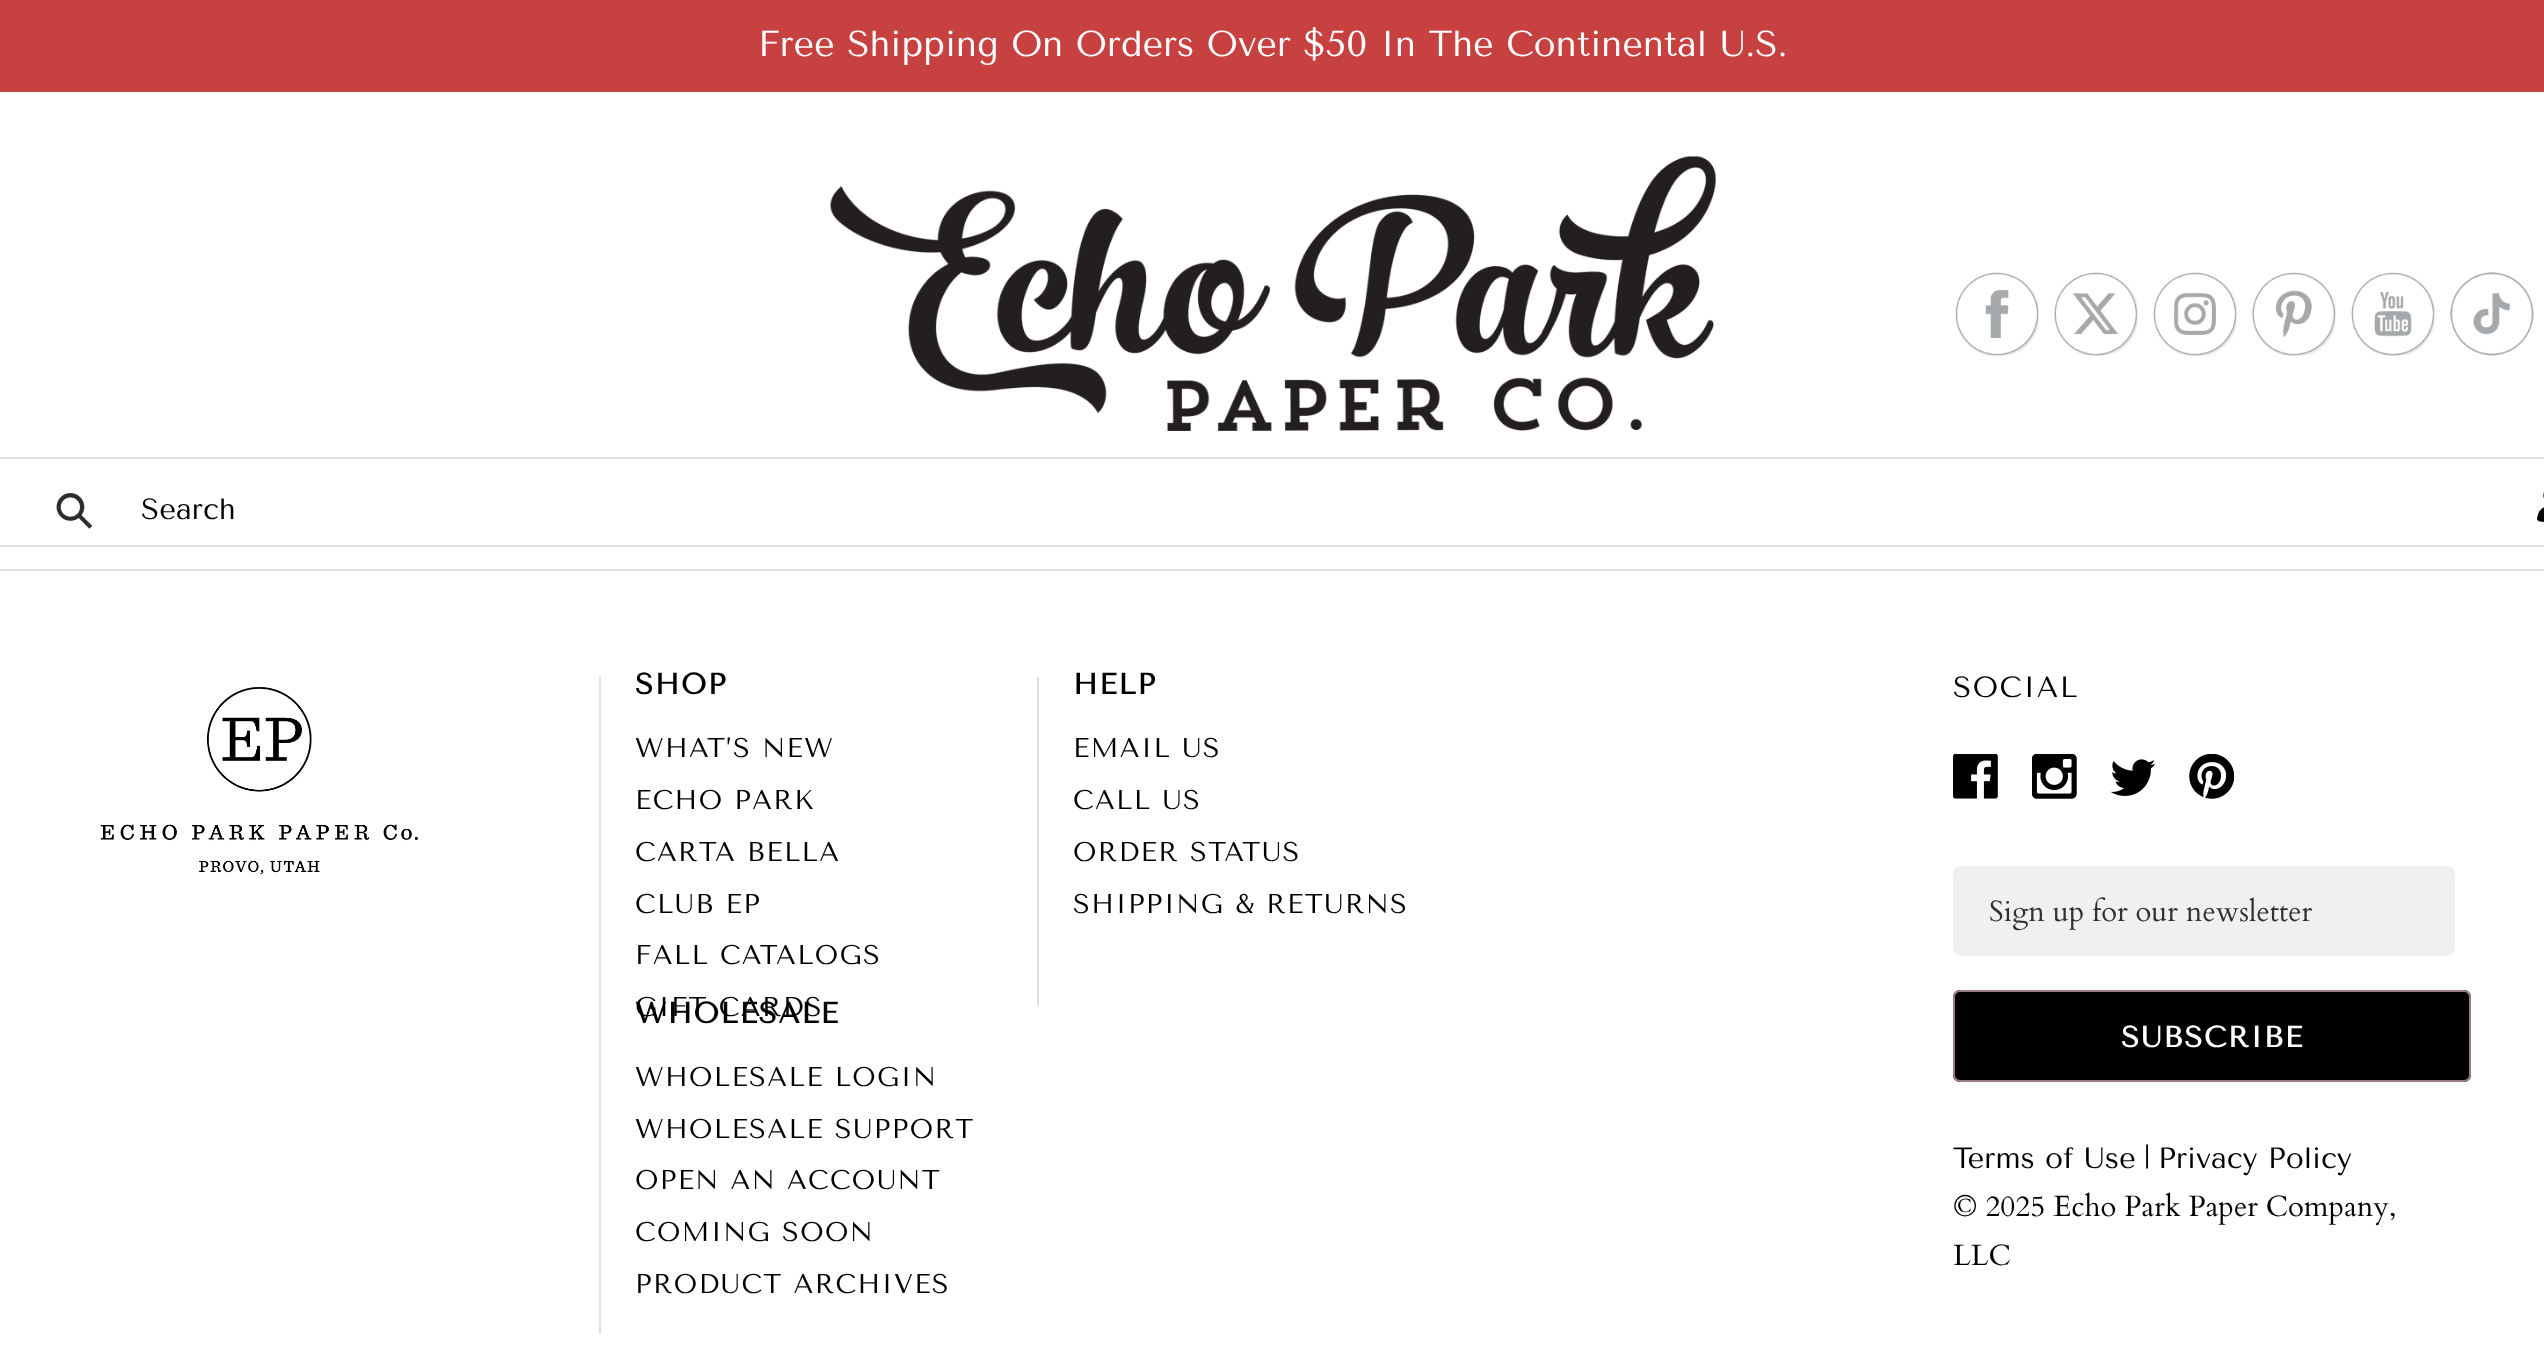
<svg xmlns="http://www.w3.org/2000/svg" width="2544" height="1353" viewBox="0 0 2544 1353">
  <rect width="100%" height="100%" fill="rgb(255,255,255)"/>
  <rect x="0" y="0" width="2544" height="92" fill="rgb(199,65,64)"/>
  <text x="758" y="56" font-family="Tenor Sans" font-size="36" fill="rgb(255,255,255)">Free Shipping On Orders Over $50 In The Continental U.S.</text>
  <image x="830" y="156" width="886" height="275" href="pic1.png"/>
  <image x="1955" y="272" width="84" height="84" href="pic2.png"/>
  <image x="2054" y="272" width="84" height="84" href="pic3.png"/>
  <image x="2153" y="272" width="84" height="84" href="pic4.png"/>
  <image x="2252" y="272" width="84" height="84" href="pic5.png"/>
  <image x="2351" y="272" width="84" height="84" href="pic6.png"/>
  <image x="2450" y="272" width="84" height="84" href="pic7.png"/>
  <rect x="0" y="457" width="2544" height="2" fill="rgb(223,223,223)"/>
  <rect x="0" y="545" width="2544" height="2" fill="rgb(223,223,223)"/>
  <image x="56" y="493" width="36" height="36" href="pic8.png"/>
  <text x="141" y="519" font-family="Tenor Sans" font-size="29.25" fill="rgb(0,0,0)">Search</text>
  <image x="2537" y="491" width="7" height="31" href="pic9.png"/>
  <rect x="0" y="569" width="2544" height="2" fill="rgb(223,223,223)"/>
  <image x="100" y="687" width="318" height="188" href="pic10.png"/>
  <rect x="599" y="677" width="2" height="657" fill="rgb(223,223,223)"/>
  <text x="635" y="694" font-family="Tenor Sans" font-size="29.25" font-weight="bold" letter-spacing="1.5" fill="rgb(0,0,0)">SHOP</text>
  <g font-family="Tenor Sans" font-size="27" letter-spacing="1.4" fill="rgb(0,0,0)">
    <text>
      <tspan x="635" y="757">WHAT’S NEW</tspan>
      <tspan x="635" y="809">ECHO PARK</tspan>
      <tspan x="635" y="861">CARTA BELLA</tspan>
      <tspan x="635" y="913">CLUB EP</tspan>
      <tspan x="635" y="964">FALL CATALOGS</tspan>
      <tspan x="635" y="1016">GIFT CARDS</tspan>
    </text>
  </g>
  <rect x="1037" y="677" width="2" height="329" fill="rgb(223,223,223)"/>
  <text x="1073" y="694" font-family="Tenor Sans" font-size="29.25" font-weight="bold" letter-spacing="1.5" fill="rgb(0,0,0)">HELP</text>
  <g font-family="Tenor Sans" font-size="27" letter-spacing="1.4" fill="rgb(0,0,0)">
    <text>
      <tspan x="1073" y="757">EMAIL US</tspan>
      <tspan x="1073" y="809">CALL US</tspan>
      <tspan x="1073" y="861">ORDER STATUS</tspan>
      <tspan x="1073" y="913">SHIPPING &amp; RETURNS</tspan>
    </text>
  </g>
  <text x="635" y="1023" font-family="Tenor Sans" font-size="29.25" font-weight="bold" letter-spacing="1.5" fill="rgb(0,0,0)">WHOLESALE</text>
  <g font-family="Tenor Sans" font-size="27" letter-spacing="1.4" fill="rgb(0,0,0)">
    <text>
      <tspan x="635" y="1086">WHOLESALE LOGIN</tspan>
      <tspan x="635" y="1138">WHOLESALE SUPPORT</tspan>
      <tspan x="635" y="1189">OPEN AN ACCOUNT</tspan>
      <tspan x="635" y="1241">COMING SOON</tspan>
      <tspan x="635" y="1293">PRODUCT ARCHIVES</tspan>
    </text>
  </g>
  <text x="1953" y="697" font-family="Tenor Sans" font-size="29.25" letter-spacing="1.5" fill="rgb(0,0,0)">SOCIAL</text>
  <image x="1953" y="754" width="45" height="45" href="pic11.png"/>
  <image x="2032" y="754" width="45" height="45" href="pic12.png"/>
  <image x="2111" y="759" width="45" height="37" href="pic13.png"/>
  <image x="2189" y="754" width="45" height="45" href="pic14.png"/>
  <rect x="1954" y="867" width="500" height="88" rx="6" fill="rgb(240,240,240)" stroke="rgb(240,240,240)" stroke-width="2"/>
  <text x="1989" y="921" font-family="Cardo" font-size="29.25" fill="rgb(48,48,48)">Sign up for our newsletter</text>
  <rect x="1953" y="990" width="518" height="92" rx="7" fill="rgb(0,0,0)"/>
  <path d="M2468 1081C2467 1082 2465 1082 2464 1082H2308L2468 1018Z" fill="rgba(0,0,0,0.15)"/>
  <rect x="1954" y="991" width="516" height="90" rx="6" fill="none" stroke="rgb(148,126,126)" stroke-width="2"/>
  <text x="2121" y="1047" font-family="Tenor Sans" font-size="29.25" font-weight="bold" letter-spacing="1.5" fill="rgb(255,255,255)">SUBSCRIBE</text>
  <text x="1953" y="1168" font-family="Tenor Sans" font-size="29.25" fill="rgb(0,0,0)">Terms of Use</text>
  <text x="2144" y="1168" font-family="Cardo" font-size="29.25" fill="rgb(0,0,0)">|</text>
  <text x="2158" y="1168" font-family="Tenor Sans" font-size="29.25" fill="rgb(0,0,0)">Privacy Policy</text>
  <g font-family="Cardo" font-size="29.25" fill="rgb(0,0,0)">
    <text>
      <tspan x="1953" y="1216">© 2025 Echo Park Paper Company,</tspan>
      <tspan x="1953" y="1265">LLC</tspan>
    </text>
  </g>
</svg>
